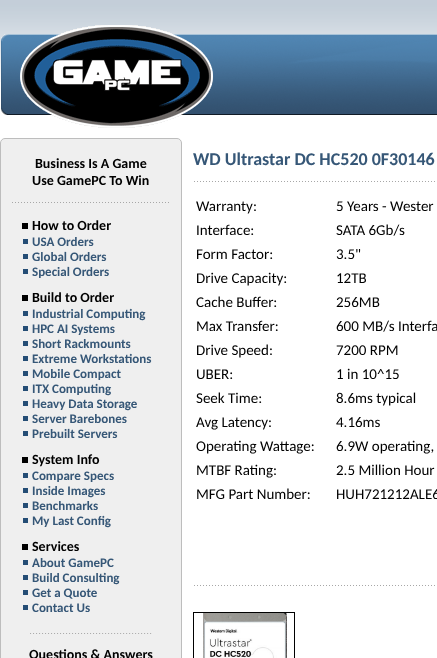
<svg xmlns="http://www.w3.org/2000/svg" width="437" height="658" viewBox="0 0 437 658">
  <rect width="100%" height="100%" fill="rgb(255,255,255)"/>
  <image x="0" y="0" width="437" height="82" href="pic1.png"/>
  <image x="1" y="25" width="436" height="103" href="pic2.png"/>
  <rect x="0.5" y="138.5" width="181" height="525" rx="4.5" fill="rgb(239,239,239)" stroke="rgb(189,189,189)"/>
  <g font-family="Carlito" font-size="14" font-weight="bold" fill="rgb(0,0,0)">
    <text x="35" y="168">Business Is A Game</text>
    <text x="32" y="185">Use GamePC To Win</text>
  </g>
  <image x="12" y="202" width="157" height="1" href="pic3.png"/>
  <rect x="22" y="223" width="6" height="6" fill="rgb(0,0,0)"/>
  <text x="32" y="230" font-family="Carlito" font-size="14" font-weight="bold" fill="rgb(0,0,0)">How to Order</text>
  <rect x="23" y="239" width="5" height="5" fill="rgb(36,77,117)"/>
  <text x="32" y="246" font-family="Carlito" font-size="13" font-weight="bold" fill="rgb(54,87,119)">USA Orders</text>
  <rect x="23" y="254" width="5" height="5" fill="rgb(36,77,117)"/>
  <text x="32" y="261" font-family="Carlito" font-size="13" font-weight="bold" fill="rgb(54,87,119)">Global Orders</text>
  <rect x="23" y="269" width="5" height="5" fill="rgb(36,77,117)"/>
  <text x="32" y="276" font-family="Carlito" font-size="13" font-weight="bold" fill="rgb(54,87,119)">Special Orders</text>
  <rect x="22" y="295" width="6" height="6" fill="rgb(0,0,0)"/>
  <text x="32" y="302" font-family="Carlito" font-size="14" font-weight="bold" fill="rgb(0,0,0)">Build to Order</text>
  <rect x="23" y="311" width="5" height="5" fill="rgb(36,77,117)"/>
  <text x="32" y="318" font-family="Carlito" font-size="13" font-weight="bold" fill="rgb(54,87,119)">Industrial Computing</text>
  <rect x="23" y="326" width="5" height="5" fill="rgb(36,77,117)"/>
  <text x="32" y="333" font-family="Carlito" font-size="13" font-weight="bold" fill="rgb(54,87,119)">HPC AI Systems</text>
  <rect x="23" y="341" width="5" height="5" fill="rgb(36,77,117)"/>
  <text x="32" y="348" font-family="Carlito" font-size="13" font-weight="bold" fill="rgb(54,87,119)">Short Rackmounts</text>
  <rect x="23" y="356" width="5" height="5" fill="rgb(36,77,117)"/>
  <text x="32" y="363" font-family="Carlito" font-size="13" font-weight="bold" fill="rgb(54,87,119)">Extreme Workstations</text>
  <rect x="23" y="371" width="5" height="5" fill="rgb(36,77,117)"/>
  <text x="32" y="378" font-family="Carlito" font-size="13" font-weight="bold" fill="rgb(54,87,119)">Mobile Compact</text>
  <rect x="23" y="386" width="5" height="5" fill="rgb(36,77,117)"/>
  <text x="32" y="393" font-family="Carlito" font-size="13" font-weight="bold" fill="rgb(54,87,119)">ITX Computing</text>
  <rect x="23" y="401" width="5" height="5" fill="rgb(36,77,117)"/>
  <text x="32" y="408" font-family="Carlito" font-size="13" font-weight="bold" fill="rgb(54,87,119)">Heavy Data Storage</text>
  <rect x="23" y="416" width="5" height="5" fill="rgb(36,77,117)"/>
  <text x="32" y="423" font-family="Carlito" font-size="13" font-weight="bold" fill="rgb(54,87,119)">Server Barebones</text>
  <rect x="23" y="431" width="5" height="5" fill="rgb(36,77,117)"/>
  <text x="32" y="438" font-family="Carlito" font-size="13" font-weight="bold" fill="rgb(54,87,119)">Prebuilt Servers</text>
  <rect x="22" y="457" width="6" height="6" fill="rgb(0,0,0)"/>
  <text x="32" y="464" font-family="Carlito" font-size="14" font-weight="bold" fill="rgb(0,0,0)">System Info</text>
  <rect x="23" y="473" width="5" height="5" fill="rgb(36,77,117)"/>
  <text x="32" y="480" font-family="Carlito" font-size="13" font-weight="bold" fill="rgb(54,87,119)">Compare Specs</text>
  <rect x="23" y="488" width="5" height="5" fill="rgb(36,77,117)"/>
  <text x="32" y="495" font-family="Carlito" font-size="13" font-weight="bold" fill="rgb(54,87,119)">Inside Images</text>
  <rect x="23" y="503" width="5" height="5" fill="rgb(36,77,117)"/>
  <text x="32" y="510" font-family="Carlito" font-size="13" font-weight="bold" fill="rgb(54,87,119)">Benchmarks</text>
  <rect x="23" y="518" width="5" height="5" fill="rgb(36,77,117)"/>
  <text x="32" y="525" font-family="Carlito" font-size="13" font-weight="bold" fill="rgb(54,87,119)">My Last Config</text>
  <rect x="22" y="544" width="6" height="6" fill="rgb(0,0,0)"/>
  <text x="32" y="551" font-family="Carlito" font-size="14" font-weight="bold" fill="rgb(0,0,0)">Services</text>
  <rect x="23" y="560" width="5" height="5" fill="rgb(36,77,117)"/>
  <text x="32" y="567" font-family="Carlito" font-size="13" font-weight="bold" fill="rgb(54,87,119)">About GamePC</text>
  <rect x="23" y="575" width="5" height="5" fill="rgb(36,77,117)"/>
  <text x="32" y="582" font-family="Carlito" font-size="13" font-weight="bold" fill="rgb(54,87,119)">Build Consulting</text>
  <rect x="23" y="590" width="5" height="5" fill="rgb(36,77,117)"/>
  <text x="32" y="597" font-family="Carlito" font-size="13" font-weight="bold" fill="rgb(54,87,119)">Get a Quote</text>
  <rect x="23" y="605" width="5" height="5" fill="rgb(36,77,117)"/>
  <text x="32" y="612" font-family="Carlito" font-size="13" font-weight="bold" fill="rgb(54,87,119)">Contact Us</text>
  <image x="30" y="633" width="122" height="1" href="pic4.png"/>
  <text x="29" y="659" font-family="Carlito" font-size="14" font-weight="bold" fill="rgb(0,0,0)">Questions &amp; Answers</text>
  <text x="193" y="165" font-family="Carlito" font-size="18" font-weight="bold" fill="rgb(54,87,119)">WD Ultrastar DC HC520 0F30146</text>
  <image x="194" y="181" width="241" height="1" href="pic5.png"/>
  <g font-family="Carlito" font-size="15" fill="rgb(0,0,0)">
    <text x="196" y="211">Warranty:</text>
    <text x="336" y="211">5 Years - Wester</text>
    <text x="196" y="235">Interface:</text>
    <text x="336" y="235">SATA 6Gb/s</text>
    <text x="196" y="259">Form Factor:</text>
    <text x="336" y="259">3.5"</text>
    <text x="196" y="283">Drive Capacity:</text>
    <text x="336" y="283">12TB</text>
    <text x="196" y="307">Cache Buffer:</text>
    <text x="336" y="307">256MB</text>
    <text x="196" y="331">Max Transfer:</text>
    <text x="336" y="331">600 MB/s Interfa</text>
    <text x="196" y="355">Drive Speed:</text>
    <text x="336" y="355">7200 RPM</text>
    <text x="196" y="379">UBER:</text>
    <text x="336" y="379">1 in 10^15</text>
    <text x="196" y="403">Seek Time:</text>
    <text x="336" y="403">8.6ms typical</text>
    <text x="196" y="427">Avg Latency:</text>
    <text x="336" y="427">4.16ms</text>
    <text x="196" y="451">Operating Wattage:</text>
    <text x="336" y="451">6.9W operating,</text>
    <text x="196" y="475">MTBF Rating:</text>
    <text x="336" y="475">2.5 Million Hour</text>
    <text x="196" y="499">MFG Part Number:</text>
    <text x="336" y="499">HUH721212ALE6</text>
  </g>
  <image x="194" y="585" width="241" height="1" href="pic5.png"/>
  <image x="203" y="613" width="84" height="45" href="pic6.png"/>
  <rect x="193.5" y="612.5" width="101" height="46" fill="none" stroke="rgb(0,0,0)"/>
</svg>
